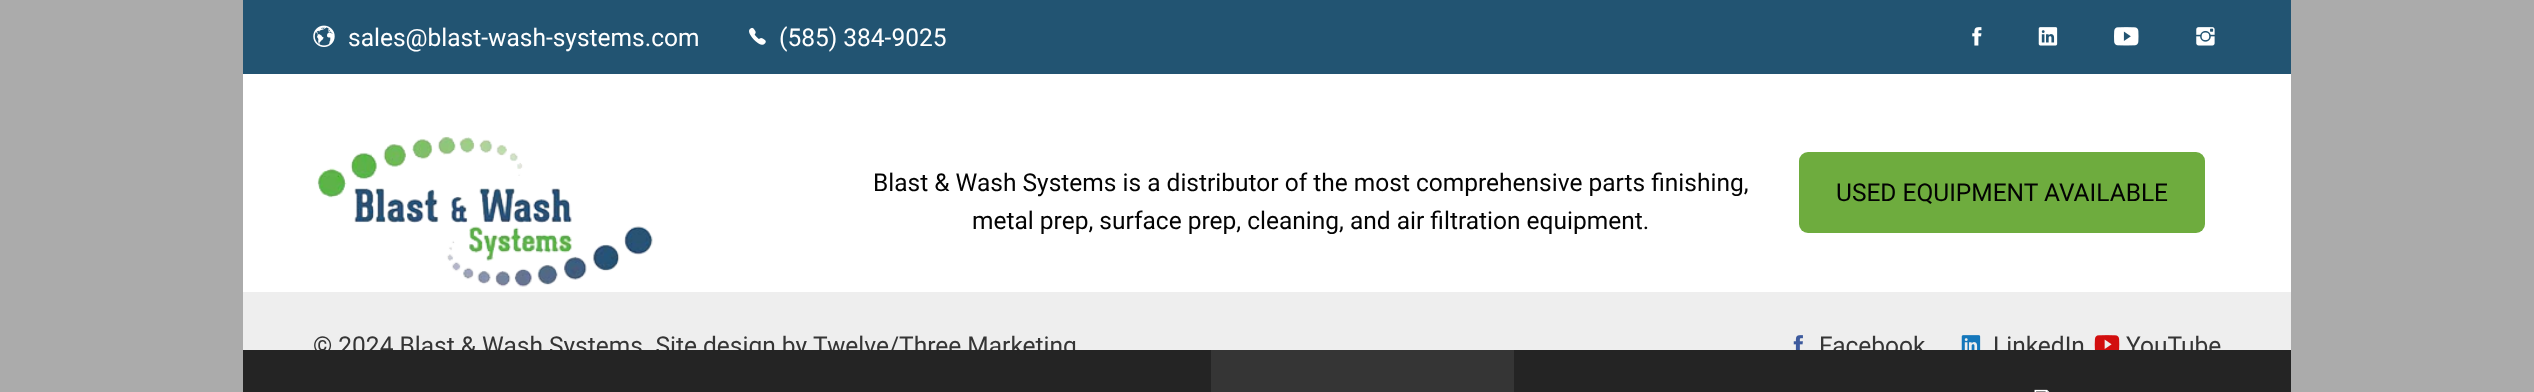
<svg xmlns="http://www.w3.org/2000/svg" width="2534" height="392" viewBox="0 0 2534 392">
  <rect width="100%" height="100%" fill="rgb(171,171,171)"/>
  <rect x="243" y="74" width="2048" height="218" fill="rgb(255,255,255)"/>
  <rect x="243" y="0" width="2048" height="74" fill="rgb(34,84,114)"/>
  <image x="313" y="25" width="22" height="22" href="pic1.png"/>
  <text x="348" y="46" font-family="Roboto" font-size="24.5" fill="rgb(255,255,255)">sales@blast-wash-systems.com</text>
  <image x="749" y="27" width="17" height="18" href="pic2.png"/>
  <text x="779" y="46" font-family="Roboto" font-size="24.5" fill="rgb(255,255,255)">(585) 384-9025</text>
  <image x="1972" y="27" width="10" height="19" href="pic3.png"/>
  <image x="2038" y="27" width="20" height="19" href="pic4.png"/>
  <image x="2114" y="27" width="25" height="19" href="pic5.png"/>
  <image x="2196" y="27" width="19" height="19" href="pic6.png"/>
  <image x="317" y="136" width="336" height="151" href="pic7.png"/>
  <g font-family="Roboto" font-size="24.5" fill="rgb(3,3,3)">
    <text x="873" y="191">Blast &amp; Wash Systems is a distributor of the most comprehensive parts finishing,</text>
    <text x="972" y="229">metal prep, surface prep, cleaning, and air filtration equipment.</text>
  </g>
  <rect x="1799" y="152" width="406" height="81" rx="9" fill="rgb(110,172,62)"/>
  <text x="1836" y="201" font-family="Roboto" font-size="24.5" fill="rgb(3,3,3)">USED EQUIPMENT AVAILABLE</text>
  <rect x="243" y="292" width="2048" height="58" fill="rgb(238,238,238)"/>
  <g font-family="Roboto" font-size="24.5" fill="rgb(53,53,53)">
    <text x="313" y="354">© 2024 Blast &amp; Wash Systems. Site design by</text>
    <text x="813" y="354">Twelve/Three Marketing</text>
    <text x="1819" y="354">Facebook</text>
    <text x="1993" y="354">LinkedIn</text>
    <text x="2126" y="354">YouTube</text>
  </g>
  <rect x="243" y="350" width="2048" height="42" fill="rgb(36,36,36)"/>
  <rect x="1211" y="350" width="303" height="42" fill="rgb(53,53,53)"/>
  <image x="2034" y="389" width="16" height="3" href="pic8.png"/>
  <image x="1793" y="335" width="10" height="15" href="pic9.png"/>
  <image x="1961" y="335" width="20" height="15" href="pic10.png"/>
  <image x="2094" y="335" width="26" height="15" href="pic11.png"/>
</svg>
